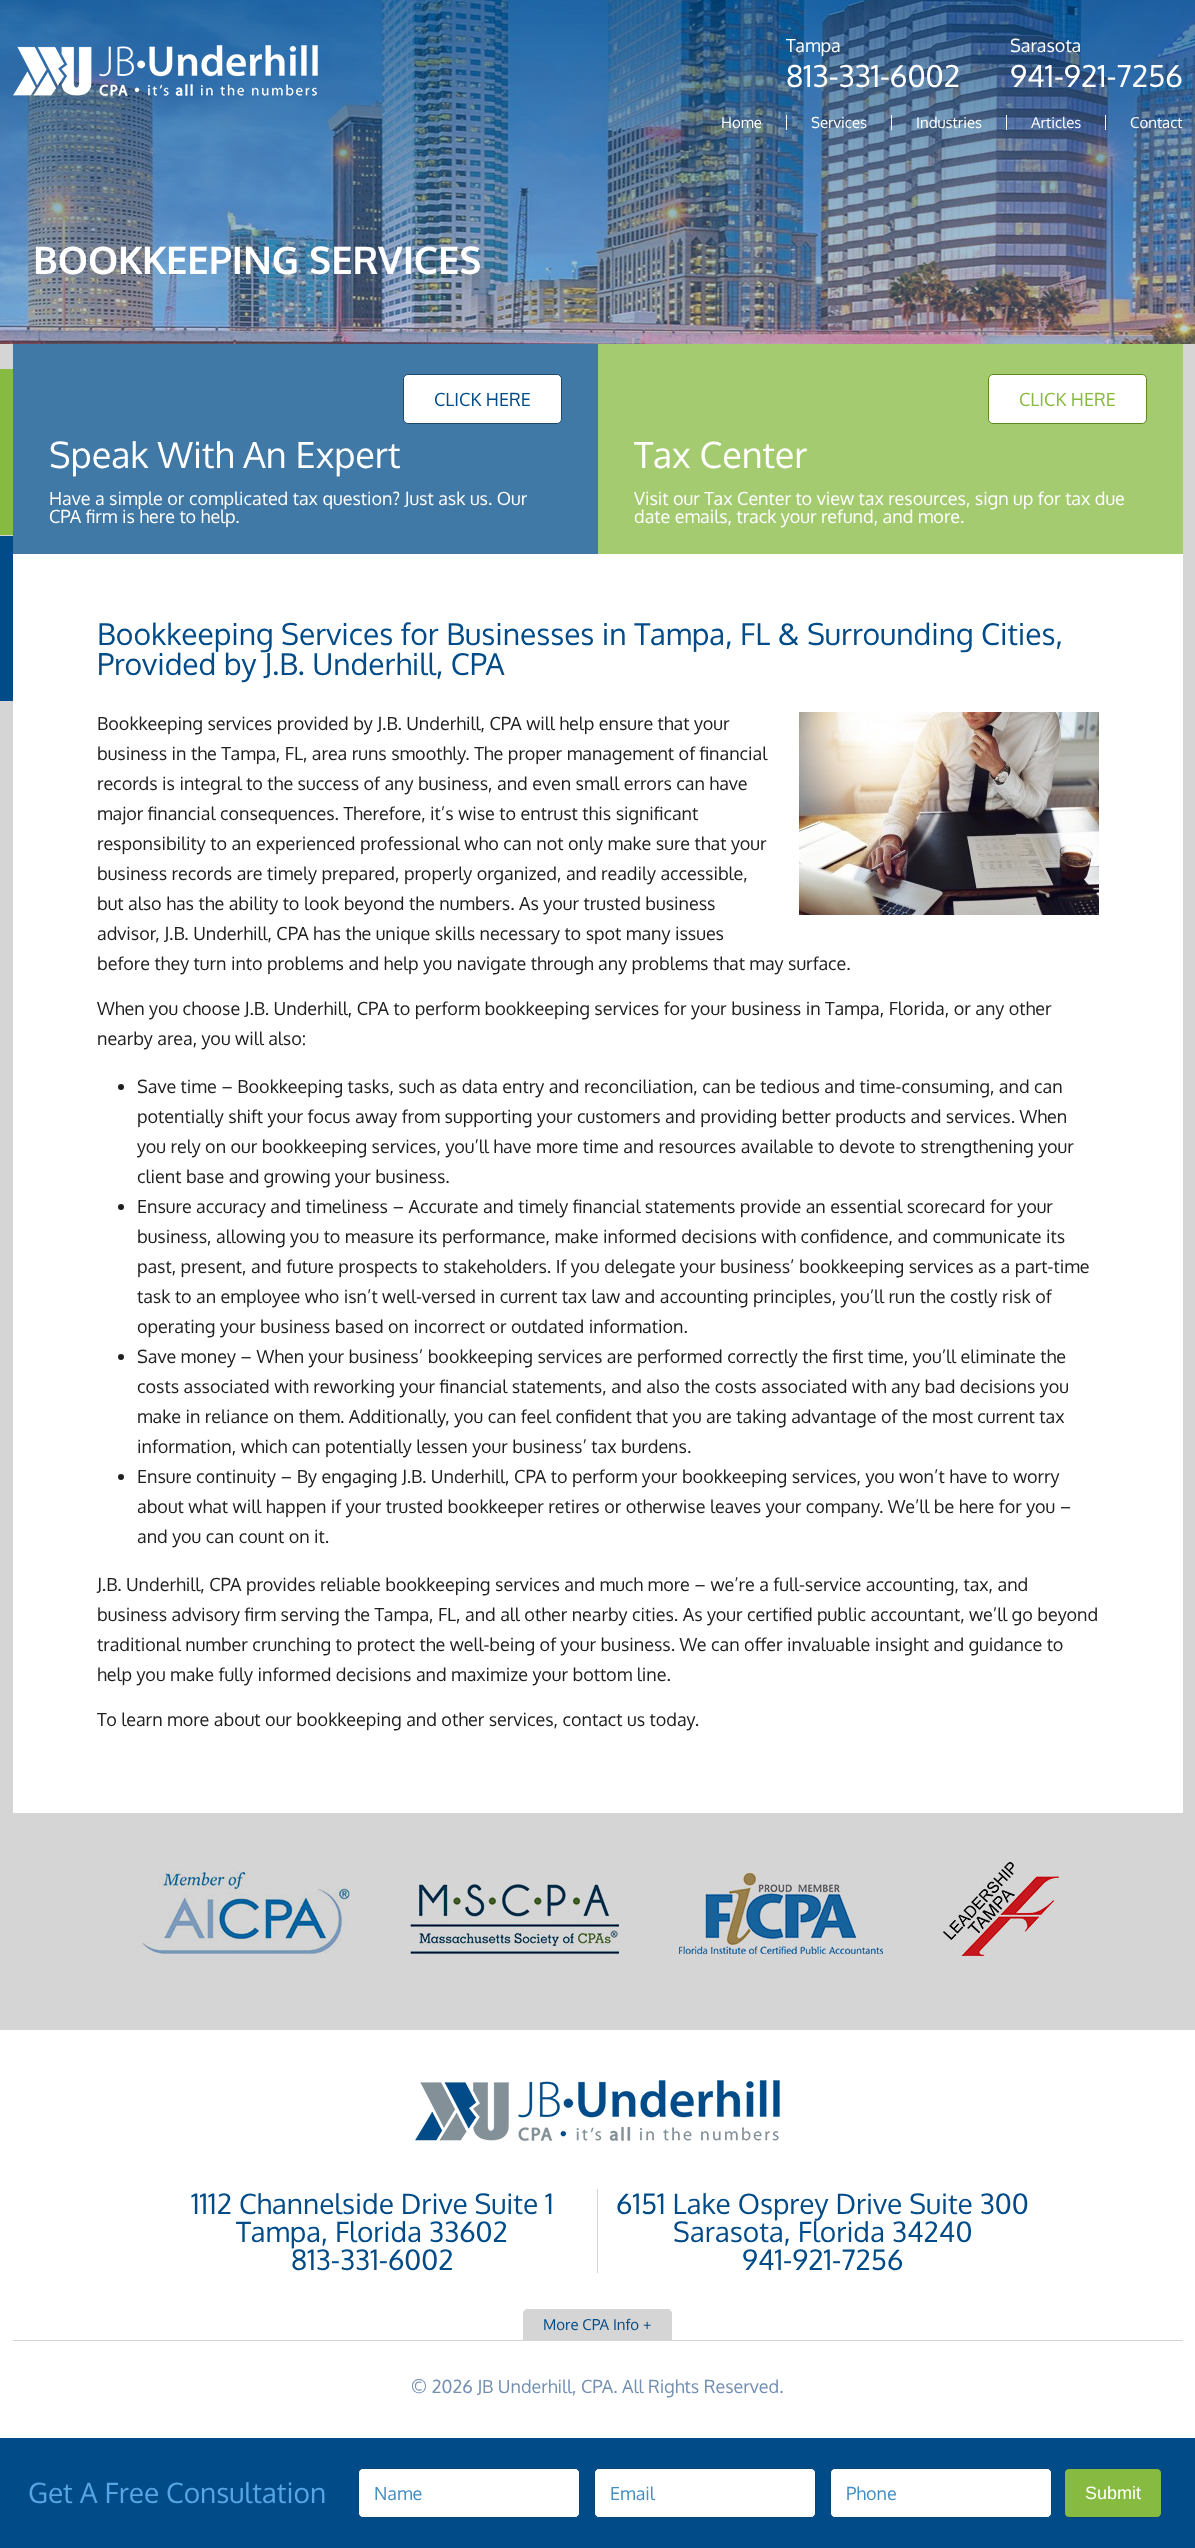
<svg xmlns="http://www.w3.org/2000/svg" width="1195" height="2548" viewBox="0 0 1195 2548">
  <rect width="100%" height="100%" fill="rgb(213,213,213)"/>
  <image x="0" y="0" width="1195" height="344" href="pic3.png"/>
  <image x="0" y="0" width="1195" height="344" href="pic2.png"/>
  <image x="13" y="45" width="305" height="51" href="pic1.png"/>
  <text x="786" y="52" font-family="Oxygen" font-size="18" fill="rgb(255,255,255)">Tampa</text>
  <text x="786" y="87" font-family="Oxygen" font-size="30" fill="rgb(255,255,255)">813-331-6002</text>
  <text x="1010" y="52" font-family="Oxygen" font-size="18" fill="rgb(255,255,255)">Sarasota</text>
  <text x="1010" y="87" font-family="Oxygen" font-size="30" fill="rgb(255,255,255)">941-921-7256</text>
  <text x="721" y="128" font-family="Oxygen" font-size="15" fill="rgb(255,255,255)">Home</text>
  <rect x="786" y="115" width="1" height="15" fill="rgb(255,255,255)"/>
  <text x="811" y="128" font-family="Oxygen" font-size="15" fill="rgb(255,255,255)">Services</text>
  <rect x="891" y="115" width="1" height="15" fill="rgb(255,255,255)"/>
  <text x="916" y="128" font-family="Oxygen" font-size="15" fill="rgb(255,255,255)">Industries</text>
  <rect x="1006" y="115" width="1" height="15" fill="rgb(255,255,255)"/>
  <text x="1031" y="128" font-family="Oxygen" font-size="15" fill="rgb(255,255,255)">Articles</text>
  <rect x="1105" y="115" width="1" height="15" fill="rgb(255,255,255)"/>
  <text x="1130" y="128" font-family="Oxygen" font-size="15" fill="rgb(255,255,255)">Contact</text>
  <text x="33" y="274" font-family="Oxygen" font-size="38" font-weight="bold" fill="rgb(255,255,255)">BOOKKEEPING SERVICES</text>
  <rect x="13" y="554" width="1170" height="1259" fill="rgb(255,255,255)"/>
  <rect x="0" y="369" width="13" height="166" fill="rgb(135,186,64)"/>
  <rect x="0" y="536" width="13" height="165" fill="rgb(0,75,136)"/>
  <rect x="13" y="344" width="585" height="210" fill="rgb(64,120,166)"/>
  <rect x="403.5" y="374.5" width="158" height="49" rx="4.5" fill="rgb(255,255,255)" stroke="rgb(29,72,107)"/>
  <text x="434" y="406" font-family="Oxygen" font-size="18" fill="rgb(0,75,136)">CLICK HERE</text>
  <text x="49" y="468" font-family="Oxygen" font-size="36" fill="rgb(255,255,255)">Speak With An Expert</text>
  <g font-family="Oxygen" font-size="18" fill="rgb(255,255,255)">
    <text>
      <tspan x="49" y="505">Have a simple or complicated tax question? Just ask us. Our</tspan>
      <tspan x="49" y="523">CPA firm is here to help.</tspan>
    </text>
  </g>
  <rect x="598" y="344" width="585" height="210" fill="rgb(165,203,112)"/>
  <rect x="988.5" y="374.5" width="158" height="49" rx="4.5" fill="rgb(255,255,255)" stroke="rgb(93,137,31)"/>
  <text x="1019" y="406" font-family="Oxygen" font-size="18" fill="rgb(135,186,64)">CLICK HERE</text>
  <text x="634" y="468" font-family="Oxygen" font-size="36" fill="rgb(255,255,255)">Tax Center</text>
  <g font-family="Oxygen" font-size="18" fill="rgb(255,255,255)">
    <text>
      <tspan x="634" y="505">Visit our Tax Center to view tax resources, sign up for tax due</tspan>
      <tspan x="634" y="523">date emails, track your refund, and more.</tspan>
    </text>
  </g>
  <g font-family="Oxygen" font-size="30" fill="rgb(0,75,136)">
    <text>
      <tspan x="97" y="645">Bookkeeping Services for Businesses in Tampa, FL &amp; Surrounding Cities,</tspan>
      <tspan x="97" y="675">Provided by J.B. Underhill, CPA</tspan>
    </text>
  </g>
  <text x="97" y="730" font-family="Oxygen" font-size="18" fill="rgb(32,32,32)">Bookkeeping services provided by J.B. Underhill, CPA will help ensure that your</text>
  <image x="799" y="712" width="300" height="203" href="pic4.png"/>
  <g font-family="Oxygen" font-size="18" fill="rgb(32,32,32)">
    <text>
      <tspan x="97" y="760">business in the Tampa, FL, area runs smoothly. The proper management of financial</tspan>
      <tspan x="97" y="790">records is integral to the success of any business, and even small errors can have</tspan>
      <tspan x="97" y="820">major financial consequences. Therefore, it’s wise to entrust this significant</tspan>
      <tspan x="97" y="850">responsibility to an experienced professional who can not only make sure that your</tspan>
      <tspan x="97" y="880">business records are timely prepared, properly organized, and readily accessible,</tspan>
      <tspan x="97" y="910">but also has the ability to look beyond the numbers. As your trusted business</tspan>
      <tspan x="97" y="940">advisor, J.B. Underhill, CPA has the unique skills necessary to spot many issues</tspan>
      <tspan x="97" y="970">before they turn into problems and help you navigate through any problems that may surface.</tspan>
    </text>
    <text>
      <tspan x="97" y="1015">When you choose J.B. Underhill, CPA to perform bookkeeping services for your business in Tampa, Florida, or any other</tspan>
      <tspan x="97" y="1045">nearby area, you will also:</tspan>
    </text>
  </g>
  <circle cx="121" cy="1087" r="3" fill="rgb(32,32,32)"/>
  <g font-family="Oxygen" font-size="18" fill="rgb(32,32,32)">
    <text>
      <tspan x="137" y="1093">Save time – Bookkeeping tasks, such as data entry and reconciliation, can be tedious and time-consuming, and can</tspan>
      <tspan x="137" y="1123">potentially shift your focus away from supporting your customers and providing better products and services. When</tspan>
      <tspan x="137" y="1153">you rely on our bookkeeping services, you’ll have more time and resources available to devote to strengthening your</tspan>
      <tspan x="137" y="1183">client base and growing your business.</tspan>
    </text>
  </g>
  <circle cx="121" cy="1207" r="3" fill="rgb(32,32,32)"/>
  <g font-family="Oxygen" font-size="18" fill="rgb(32,32,32)">
    <text>
      <tspan x="137" y="1213">Ensure accuracy and timeliness – Accurate and timely financial statements provide an essential scorecard for your</tspan>
      <tspan x="137" y="1243">business, allowing you to measure its performance, make informed decisions with confidence, and communicate its</tspan>
      <tspan x="137" y="1273">past, present, and future prospects to stakeholders. If you delegate your business’ bookkeeping services as a part-time</tspan>
      <tspan x="137" y="1303">task to an employee who isn’t well-versed in current tax law and accounting principles, you’ll run the costly risk of</tspan>
      <tspan x="137" y="1333">operating your business based on incorrect or outdated information.</tspan>
    </text>
  </g>
  <circle cx="121" cy="1357" r="3" fill="rgb(32,32,32)"/>
  <g font-family="Oxygen" font-size="18" fill="rgb(32,32,32)">
    <text>
      <tspan x="137" y="1363">Save money – When your business’ bookkeeping services are performed correctly the first time, you’ll eliminate the</tspan>
      <tspan x="137" y="1393">costs associated with reworking your financial statements, and also the costs associated with any bad decisions you</tspan>
      <tspan x="137" y="1423">make in reliance on them. Additionally, you can feel confident that you are taking advantage of the most current tax</tspan>
      <tspan x="137" y="1453">information, which can potentially lessen your business’ tax burdens.</tspan>
    </text>
  </g>
  <circle cx="121" cy="1477" r="3" fill="rgb(32,32,32)"/>
  <g font-family="Oxygen" font-size="18" fill="rgb(32,32,32)">
    <text>
      <tspan x="137" y="1483">Ensure continuity – By engaging J.B. Underhill, CPA to perform your bookkeeping services, you won’t have to worry</tspan>
      <tspan x="137" y="1513">about what will happen if your trusted bookkeeper retires or otherwise leaves your company. We’ll be here for you –</tspan>
      <tspan x="137" y="1543">and you can count on it.</tspan>
    </text>
    <text>
      <tspan x="97" y="1591">J.B. Underhill, CPA provides reliable bookkeeping services and much more – we’re a full-service accounting, tax, and</tspan>
      <tspan x="97" y="1621">business advisory firm serving the Tampa, FL, and all other nearby cities. As your certified public accountant, we’ll go beyond</tspan>
      <tspan x="97" y="1651">traditional number crunching to protect the well-being of your business. We can offer invaluable insight and guidance to</tspan>
      <tspan x="97" y="1681">help you make fully informed decisions and maximize your bottom line.</tspan>
    </text>
    <text x="97" y="1726">To learn more about our bookkeeping and other services, contact us today.</text>
  </g>
  <image x="141" y="1867" width="209" height="88" href="pic5.png"/>
  <image x="410" y="1883" width="209" height="72" href="pic6.png"/>
  <image x="679" y="1867" width="204" height="88" href="pic7.png"/>
  <image x="943" y="1859" width="116" height="104" href="pic8.png"/>
  <rect x="0" y="2030" width="1195" height="408" fill="rgb(255,255,255)"/>
  <image x="415" y="2080" width="365" height="61" href="pic9.png"/>
  <rect x="597" y="2189" width="1" height="84" fill="rgb(213,213,213)"/>
  <g font-family="Oxygen" font-size="28" fill="rgb(0,75,136)">
    <text x="191" y="2214">1112 Channelside Drive Suite 1</text>
    <text x="236" y="2242">Tampa, Florida 33602</text>
    <text x="291" y="2270">813-331-6002</text>
    <text x="616" y="2214">6151 Lake Osprey Drive Suite 300</text>
    <text x="673" y="2242">Sarasota, Florida 34240</text>
    <text x="742" y="2270">941-921-7256</text>
  </g>
  <rect x="13" y="2340" width="1170" height="1" fill="rgb(213,213,213)"/>
  <path d="M528 2309H667C670 2309 672 2311 672 2314V2340H523V2314C523 2311 525 2309 528 2309Z" fill="rgb(213,213,213)"/>
  <text x="543" y="2330" font-family="Oxygen" font-size="15" fill="rgb(0,75,136)">More CPA Info +</text>
  <text x="411" y="2393" font-family="Oxygen" font-size="18" fill="rgb(115,143,177)">© 2026 JB Underhill, CPA. All Rights Reserved.</text>
  <rect x="0" y="2438" width="1195" height="110" fill="rgb(0,75,136)"/>
  <text x="28" y="2503" font-family="Oxygen" font-size="28" fill="rgb(86,165,229)">Get A Free Consultation</text>
  <rect x="358.5" y="2468.5" width="221" height="49" rx="4.5" fill="rgb(255,255,255)" stroke="rgb(5,69,122)"/>
  <text x="374" y="2500" font-family="Oxygen" font-size="18" fill="rgb(66,141,194)">Name</text>
  <rect x="594.5" y="2468.5" width="221" height="49" rx="4.5" fill="rgb(255,255,255)" stroke="rgb(5,69,122)"/>
  <text x="610" y="2500" font-family="Oxygen" font-size="18" fill="rgb(66,141,194)">Email</text>
  <rect x="830.5" y="2468.5" width="221" height="49" rx="4.5" fill="rgb(255,255,255)" stroke="rgb(5,69,122)"/>
  <text x="846" y="2500" font-family="Oxygen" font-size="18" fill="rgb(66,141,194)">Phone</text>
  <rect x="1064.5" y="2468.5" width="97" height="49" rx="4.5" fill="rgb(135,186,64)" stroke="rgb(5,69,122)"/>
  <text x="1085" y="2499" font-family="Liberation Sans" font-size="18" fill="rgb(255,255,255)">Submit</text>
</svg>
